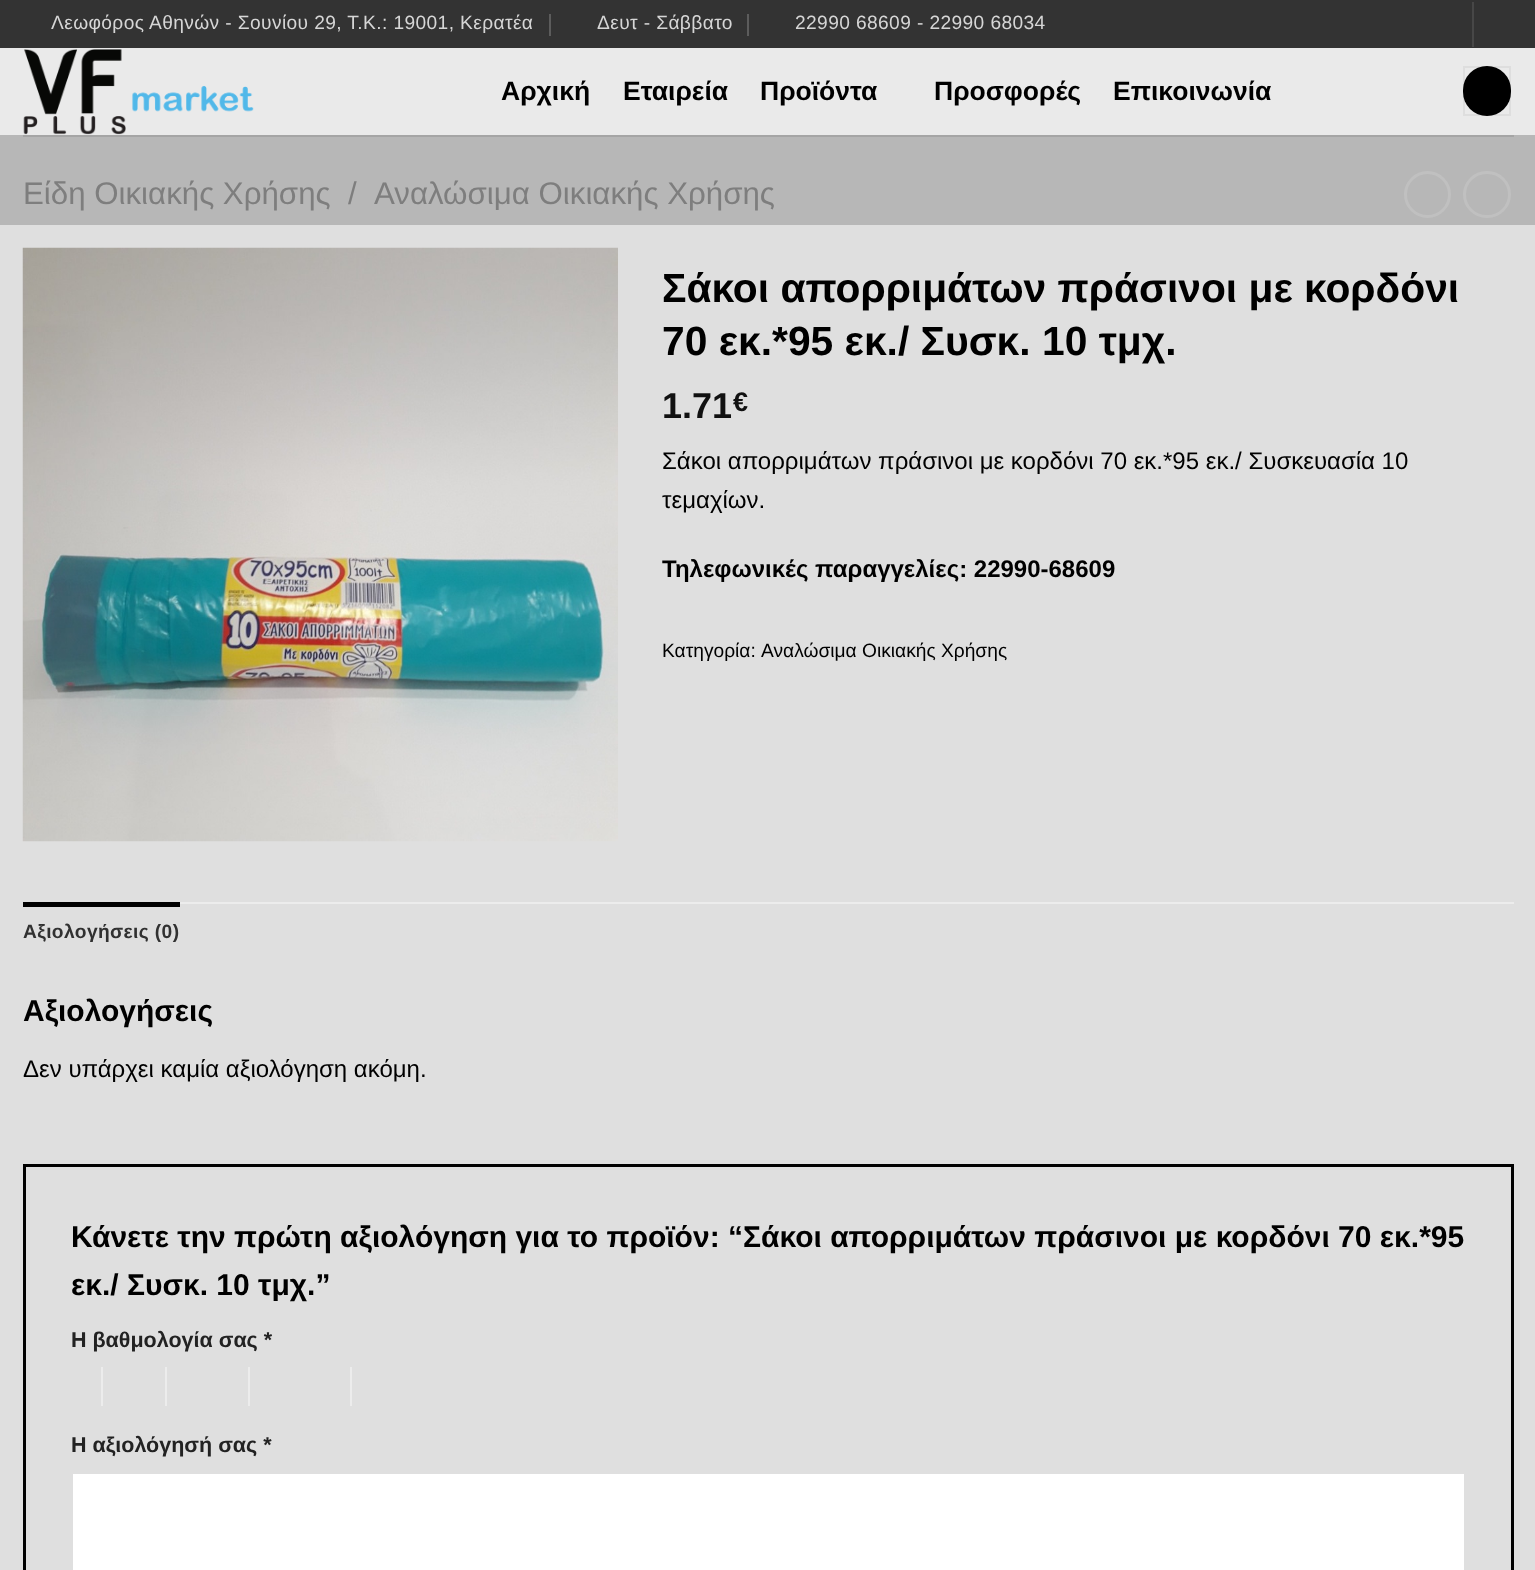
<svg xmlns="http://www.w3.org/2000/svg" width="1535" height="1570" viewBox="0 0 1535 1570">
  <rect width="100%" height="100%" fill="rgb(183,183,183)"/>
  <rect x="0" y="0" width="1535" height="48" fill="rgb(51,51,51)"/>
  <text x="51" y="29" font-family="Liberation Sans" font-size="19.2" letter-spacing="0.38" fill="rgb(214,214,214)">Λεωφόρος Αθηνών - Σουνίου 29, Τ.Κ.: 19001, Κερατέα</text>
  <rect x="549" y="14" width="2" height="22" fill="rgb(92,92,92)"/>
  <text x="597" y="29" font-family="Liberation Sans" font-size="19.2" letter-spacing="0.38" fill="rgb(214,214,214)">Δευτ - Σάββατο</text>
  <rect x="747" y="14" width="2" height="22" fill="rgb(92,92,92)"/>
  <text x="795" y="29" font-family="Liberation Sans" font-size="19.2" letter-spacing="0.38" fill="rgb(214,214,214)">22990 68609 - 22990 68034</text>
  <rect x="1472" y="2" width="2" height="45" fill="rgb(71,71,71)"/>
  <rect x="0" y="48" width="1535" height="87" fill="rgb(234,234,234)"/>
  <image x="23" y="49" width="231" height="86" href="pic1.png"/>
  <g font-family="Liberation Sans" font-size="26.5" font-weight="bold" fill="rgb(0,0,0)">
    <text x="501" y="100">Αρχική</text>
    <text x="623" y="100">Εταιρεία</text>
    <text x="760" y="100">Προϊόντα</text>
    <text x="934" y="100">Προσφορές</text>
    <text x="1113" y="100">Επικοινωνία</text>
  </g>
  <rect x="1463" y="66" width="48" height="50" rx="24" fill="rgb(0,0,0)"/>
  <rect x="1464" y="67" width="46" height="48" fill="none" stroke="rgba(0,0,0,0.05)" stroke-width="2"/>
  <rect x="23" y="135" width="1491" height="2" fill="rgb(165,165,165)"/>
  <g font-family="Liberation Sans" font-size="31.25" fill="rgb(126,126,126)">
    <text x="23" y="204">Είδη Οικιακής Χρήσης</text>
    <text x="348" y="204">/</text>
    <text x="374" y="204">Αναλώσιμα Οικιακής Χρήσης</text>
  </g>
  <circle cx="1427.5" cy="194.5" r="22" fill="none" stroke="rgb(192,192,192)" stroke-width="3"/>
  <rect x="1464.5" y="172.5" width="45" height="44" rx="22" fill="none" stroke="rgb(192,192,192)" stroke-width="3"/>
  <rect x="0" y="225" width="1535" height="1345" fill="rgb(223,223,223)"/>
  <image x="22" y="247" width="596" height="595" href="pic2.png"/>
  <g font-family="Liberation Sans" font-size="40.75" font-weight="bold" fill="rgb(0,0,0)">
    <text>
      <tspan x="662" y="302">Σάκοι απορριμάτων πράσινοι με κορδόνι</tspan>
      <tspan x="662" y="355">70 εκ.*95 εκ./ Συσκ. 10 τμχ.</tspan>
    </text>
  </g>
  <text x="662" y="418" font-family="Liberation Sans" font-size="36" font-weight="bold" fill="rgb(17,17,17)">1.71</text>
  <text x="733" y="411" font-family="Liberation Sans" font-size="27" font-weight="bold" fill="rgb(17,17,17)">€</text>
  <g font-family="Liberation Sans" font-size="24" fill="rgb(0,0,0)">
    <text>
      <tspan x="662" y="469">Σάκοι απορριμάτων πράσινοι με κορδόνι 70 εκ.*95 εκ./ Συσκευασία 10</tspan>
      <tspan x="662" y="508">τεμαχίων.</tspan>
    </text>
  </g>
  <text x="662" y="577" font-family="Liberation Sans" font-size="24" font-weight="bold" fill="rgb(0,0,0)">Τηλεφωνικές παραγγελίες: 22990-68609</text>
  <g font-family="Liberation Sans" font-size="19.2" fill="rgb(0,0,0)">
    <text x="662" y="657">Κατηγορία:</text>
    <text x="761" y="657">Αναλώσιμα Οικιακής Χρήσης</text>
  </g>
  <rect x="180" y="902" width="1334" height="2" fill="rgb(236,236,236)"/>
  <rect x="23" y="902" width="157" height="5" fill="rgb(0,0,0)"/>
  <text x="23" y="938" font-family="Liberation Sans" font-size="19.2" font-weight="bold" letter-spacing="0.38" fill="rgb(49,49,49)">Αξιολογήσεις (0)</text>
  <text x="23" y="1021" font-family="Liberation Sans" font-size="30" font-weight="bold" fill="rgb(0,0,0)">Αξιολογήσεις</text>
  <text x="23" y="1077" font-family="Liberation Sans" font-size="24" fill="rgb(0,0,0)">Δεν υπάρχει καμία αξιολόγηση ακόμη.</text>
  <rect x="24.5" y="1165.5" width="1488" height="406" fill="none" stroke="rgb(0,0,0)" stroke-width="3"/>
  <g font-family="Liberation Sans" font-size="30" font-weight="bold" fill="rgb(0,0,0)">
    <text>
      <tspan x="71" y="1247">Κάνετε την πρώτη αξιολόγηση για το προϊόν: “Σάκοι απορριμάτων πράσινοι με κορδόνι 70 εκ.*95</tspan>
      <tspan x="71" y="1295">εκ./ Συσκ. 10 τμχ.”</tspan>
    </text>
  </g>
  <text x="71" y="1347" font-family="Liberation Sans" font-size="21.5" font-weight="bold" fill="rgb(34,34,34)">Η βαθμολογία σας *</text>
  <rect x="101" y="1367" width="2" height="39" fill="rgb(236,236,236)"/>
  <rect x="165" y="1367" width="2" height="39" fill="rgb(236,236,236)"/>
  <rect x="248" y="1367" width="2" height="39" fill="rgb(236,236,236)"/>
  <rect x="350" y="1367" width="2" height="39" fill="rgb(236,236,236)"/>
  <text x="71" y="1452" font-family="Liberation Sans" font-size="21.5" font-weight="bold" fill="rgb(34,34,34)">Η αξιολόγησή σας *</text>
  <rect x="73" y="1474" width="1391" height="96" fill="rgb(255,255,255)"/>
</svg>
